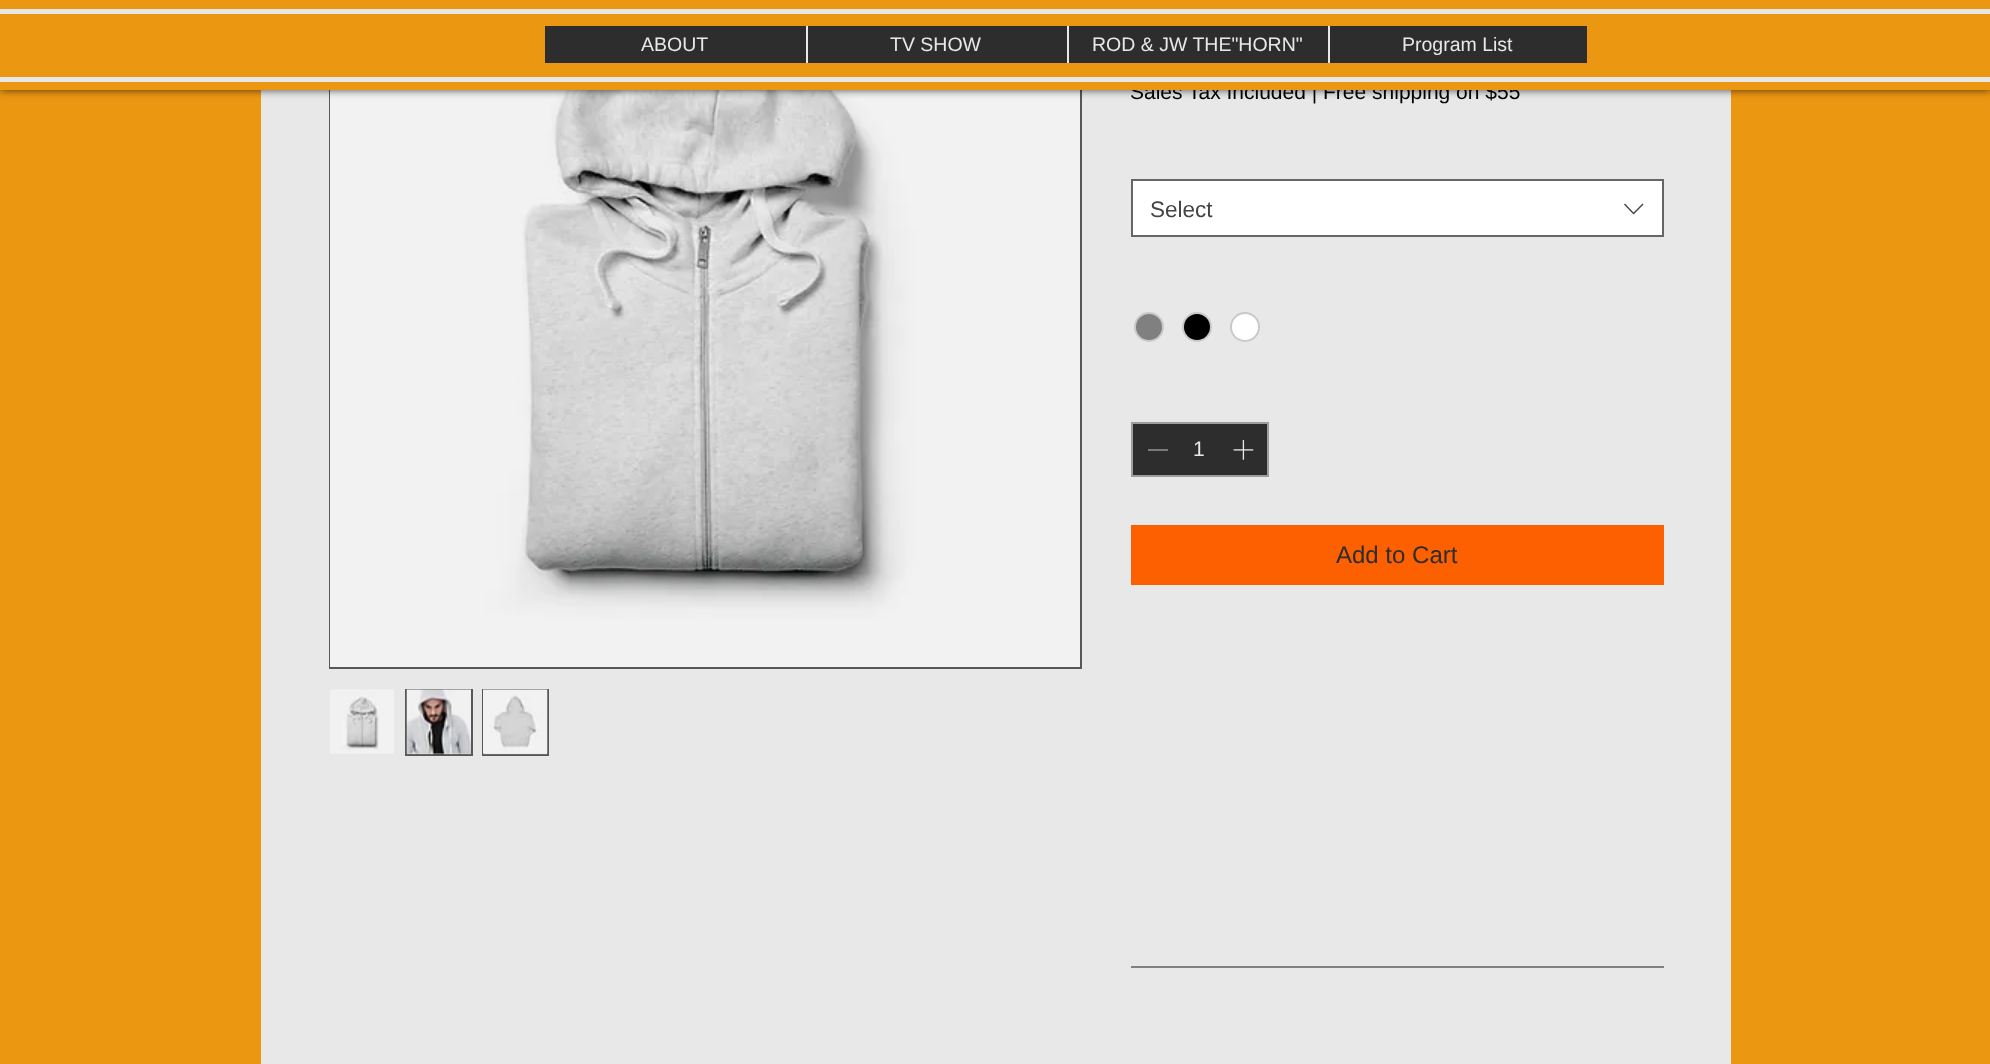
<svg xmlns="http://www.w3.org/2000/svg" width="1990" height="1064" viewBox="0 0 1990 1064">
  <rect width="100%" height="100%" fill="rgb(236,151,18)"/>
  <rect x="261" y="90" width="1470" height="974" fill="rgb(232,232,232)"/>
  <rect x="330" y="-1" width="751" height="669" fill="none" stroke="rgb(87,87,87)" stroke-width="2"/>
  <image x="330" y="90" width="750" height="577" href="pic1.png"/>
  <rect x="0" y="0" width="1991" height="90" fill="rgba(0,0,0,0.7)" filter="blur(4px)"/>
  <text x="1130" y="99" font-family="Liberation Sans" font-size="21" fill="rgb(0,0,0)">Sales Tax Included | Free shipping on $55</text>
  <rect x="0" y="0" width="1990" height="90" fill="rgb(236,151,18)"/>
  <rect x="0" y="9" width="1990" height="5" fill="rgb(232,232,232)"/>
  <rect x="0" y="77" width="1990" height="5" fill="rgb(232,232,232)"/>
  <rect x="545" y="26" width="1042" height="37" fill="rgb(45,45,45)"/>
  <text x="641" y="51" font-family="Liberation Sans" font-size="19.5" fill="rgb(232,232,232)">ABOUT</text>
  <rect x="806" y="26" width="2" height="37" fill="rgb(232,232,232)"/>
  <text x="890" y="51" font-family="Liberation Sans" font-size="19.5" fill="rgb(232,232,232)">TV SHOW</text>
  <rect x="1067" y="26" width="2" height="37" fill="rgb(232,232,232)"/>
  <text x="1092" y="51" font-family="Liberation Sans" font-size="19.5" fill="rgb(232,232,232)">ROD &amp; JW THE"HORN"</text>
  <rect x="1328" y="26" width="2" height="37" fill="rgb(232,232,232)"/>
  <text x="1402" y="51" font-family="Liberation Sans" font-size="19.5" fill="rgb(232,232,232)">Program List</text>
  <image x="330" y="689" width="64" height="65" href="pic2.png"/>
  <rect x="406" y="690" width="66" height="65" fill="none" stroke="rgb(87,87,87)" stroke-width="2"/>
  <image x="406" y="689" width="65" height="66" href="pic3.png"/>
  <rect x="483" y="690" width="65" height="65" fill="none" stroke="rgb(87,87,87)" stroke-width="2"/>
  <image x="483" y="689" width="65" height="66" href="pic4.png"/>
  <rect x="1132" y="180" width="531" height="56" fill="rgb(255,255,255)" stroke="rgb(102,102,102)" stroke-width="2"/>
  <text x="1150" y="217" font-family="Liberation Sans" font-size="22.5" fill="rgb(68,68,68)">Select</text>
  <path d="M1642.5 203.5L1643.5 204.5L1633.5 214.5L1624 204.5L1625 203.5L1633.5 212.5Z" fill="rgb(68,68,68)" fill-rule="evenodd"/>
  <circle cx="1149" cy="327" r="14" fill="rgb(128,128,128)" stroke="rgb(201,201,201)" stroke-width="2"/>
  <circle cx="1197" cy="327" r="14" fill="rgb(0,0,0)" stroke="rgb(201,201,201)" stroke-width="2"/>
  <circle cx="1245" cy="327" r="14" fill="rgb(255,255,255)" stroke="rgb(201,201,201)" stroke-width="2"/>
  <rect x="1132" y="423" width="136" height="53" fill="rgb(45,45,45)" stroke="rgb(157,157,157)" stroke-width="2"/>
  <rect x="1148" y="449" width="20" height="2" fill="rgb(122,122,122)"/>
  <text x="1193" y="456" font-family="Liberation Sans" font-size="21" fill="rgb(232,232,232)">1</text>
  <image x="1233" y="440" width="21" height="20" href="pic5.png"/>
  <rect x="1131" y="525" width="533" height="60" fill="rgb(252,96,0)"/>
  <text x="1336" y="563" font-family="Liberation Sans" font-size="24" fill="rgb(45,45,45)">Add to Cart</text>
  <rect x="1131" y="966" width="533" height="2" fill="rgb(129,129,129)"/>
</svg>
